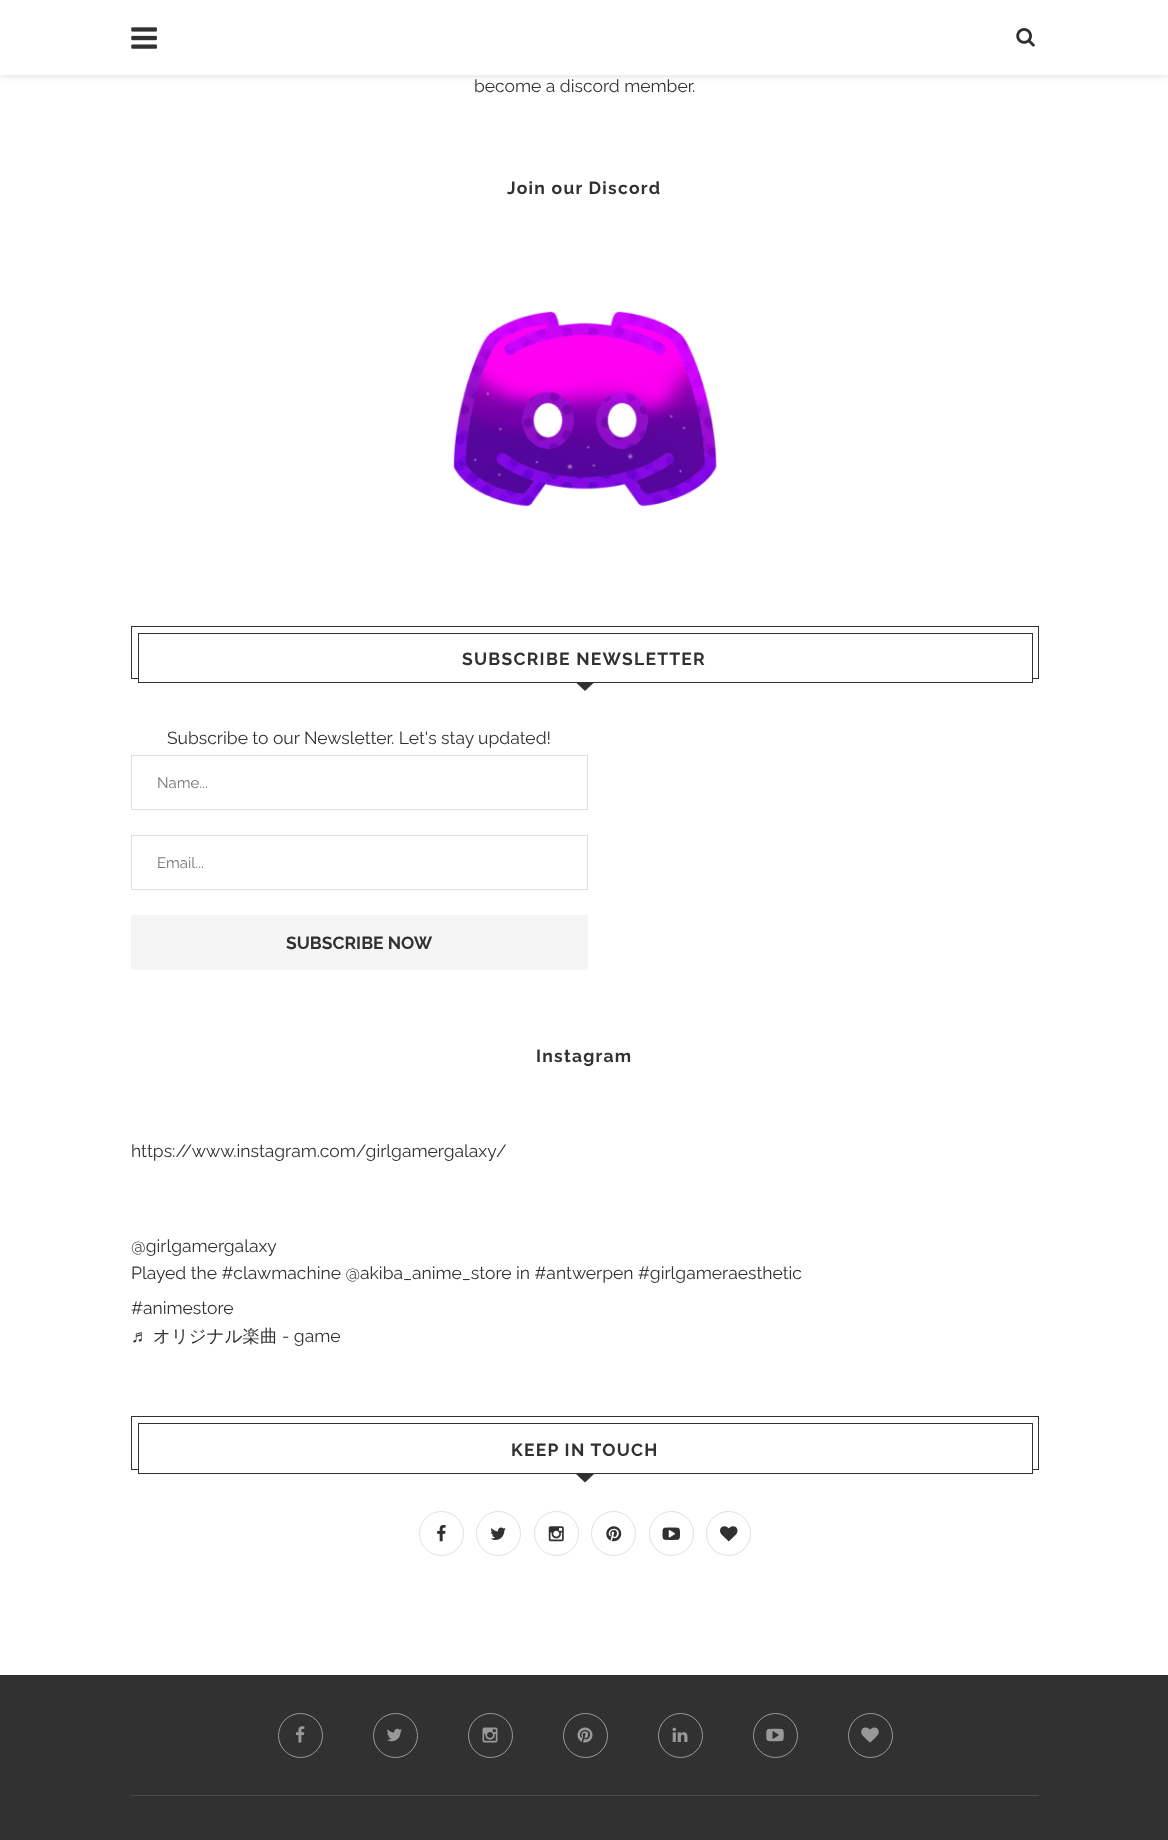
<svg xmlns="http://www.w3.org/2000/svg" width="1168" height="1840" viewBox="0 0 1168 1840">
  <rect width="100%" height="100%" fill="rgb(255,255,255)"/>
  <rect x="0" y="1" width="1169" height="75" fill="rgba(190,190,190,0.46)" filter="blur(3px)"/>
  <rect x="0" y="0" width="1168" height="75" fill="rgb(255,255,255)"/>
  <image x="131" y="27" width="26" height="22" href="pic1.png"/>
  <image x="1016" y="28" width="19" height="19" href="pic2.png"/>
  <text x="474" y="92" font-family="Raleway" font-size="17.5" fill="rgb(49,49,49)">become a discord member.</text>
  <text x="507" y="194" font-family="Raleway" font-size="17.5" font-weight="bold" letter-spacing="1.25" fill="rgb(49,49,49)">Join our Discord</text>
  <image x="453" y="311" width="264" height="196" href="pic3.png"/>
  <rect x="131.5" y="626.5" width="907" height="52" fill="none" stroke="rgb(49,49,49)"/>
  <rect x="139" y="678" width="893" height="1" fill="rgb(255,255,255)"/>
  <rect x="138.5" y="633.5" width="894" height="49" fill="none" stroke="rgb(49,49,49)"/>
  <text x="462" y="665" font-family="Raleway" font-size="17.5" font-weight="bold" letter-spacing="1.25" fill="rgb(49,49,49)">SUBSCRIBE NEWSLETTER</text>
  <path d="M576 682.5H594L585 691Z" fill="rgb(49,49,49)"/>
  <text x="167" y="744" font-family="Raleway" font-size="17.5" fill="rgb(49,49,49)">Subscribe to our Newsletter. Let's stay updated!</text>
  <rect x="131.5" y="755.5" width="456" height="54" fill="none" stroke="rgb(222,222,222)"/>
  <text x="157" y="788" font-family="Raleway" font-size="15" fill="rgb(117,117,117)">Name...</text>
  <rect x="131.5" y="835.5" width="456" height="54" fill="none" stroke="rgb(222,222,222)"/>
  <text x="157" y="868" font-family="Raleway" font-size="15" fill="rgb(117,117,117)">Email...</text>
  <rect x="131" y="915" width="457" height="55" fill="rgb(245,245,245)"/>
  <text x="286" y="949" font-family="Raleway" font-size="17.5" font-weight="bold" fill="rgb(49,49,49)">SUBSCRIBE NOW</text>
  <text x="536" y="1062" font-family="Raleway" font-size="17.5" font-weight="bold" letter-spacing="1.25" fill="rgb(49,49,49)">Instagram</text>
  <g font-family="Raleway" font-size="17.5" fill="rgb(49,49,49)">
    <text x="131" y="1157">https://www.instagram.com/girlgamergalaxy/</text>
    <text>
      <tspan x="131" y="1252">@girlgamergalaxy</tspan>
      <tspan x="131" y="1279">Played the #clawmachine @akiba_anime_store in #antwerpen #girlgameraesthetic</tspan>
    </text>
    <text x="131" y="1314">#animestore</text>
  </g>
  <text x="131" y="1342" font-family="Liberation Sans" font-size="17.5" fill="rgb(49,49,49)">♬</text>
  <text x="153" y="1342" font-family="WenQuanYi Zen Hei" font-size="17.5" font-weight="500" fill="rgb(49,49,49)">オリジナル楽曲</text>
  <text x="282" y="1342" font-family="Raleway" font-size="17.5" fill="rgb(49,49,49)">- game</text>
  <rect x="131.5" y="1416.5" width="907" height="53" fill="none" stroke="rgb(49,49,49)"/>
  <rect x="139" y="1469" width="893" height="1" fill="rgb(255,255,255)"/>
  <rect x="138.5" y="1423.5" width="894" height="50" fill="none" stroke="rgb(49,49,49)"/>
  <text x="511" y="1456" font-family="Raleway" font-size="17.5" font-weight="bold" letter-spacing="1.25" fill="rgb(49,49,49)">KEEP IN TOUCH</text>
  <path d="M576 1474H594L585 1482.5Z" fill="rgb(49,49,49)"/>
  <circle cx="441.5" cy="1533.5" r="22" fill="none" stroke="rgb(224,224,224)"/>
  <image x="437" y="1525" width="9" height="17" href="pic4.png"/>
  <circle cx="498.5" cy="1533.5" r="22" fill="none" stroke="rgb(224,224,224)"/>
  <image x="490" y="1527" width="16" height="13" href="pic5.png"/>
  <circle cx="556.5" cy="1533.5" r="22" fill="none" stroke="rgb(224,224,224)"/>
  <image x="548" y="1526" width="16" height="16" href="pic6.png"/>
  <circle cx="613.5" cy="1533.5" r="22" fill="none" stroke="rgb(224,224,224)"/>
  <image x="606" y="1526" width="16" height="16" href="pic7.png"/>
  <circle cx="671.5" cy="1533.5" r="22" fill="none" stroke="rgb(224,224,224)"/>
  <image x="662" y="1527" width="18" height="13" href="pic8.png"/>
  <circle cx="728.5" cy="1533.5" r="22" fill="none" stroke="rgb(224,224,224)"/>
  <image x="720" y="1526" width="18" height="16" href="pic9.png"/>
  <rect x="0" y="1675" width="1168" height="165" fill="rgb(49,49,49)"/>
  <rect x="131" y="1795" width="908" height="1" fill="rgb(74,74,74)"/>
  <circle cx="300.5" cy="1735.5" r="22" fill="none" stroke="rgb(153,153,153)"/>
  <image x="295" y="1726" width="10" height="17" href="pic10.png"/>
  <circle cx="395.5" cy="1735.5" r="22" fill="none" stroke="rgb(153,153,153)"/>
  <image x="387" y="1728" width="15" height="14" href="pic11.png"/>
  <circle cx="490.5" cy="1735.5" r="22" fill="none" stroke="rgb(153,153,153)"/>
  <image x="482" y="1727" width="16" height="16" href="pic12.png"/>
  <circle cx="585.5" cy="1735.5" r="22" fill="none" stroke="rgb(153,153,153)"/>
  <image x="577" y="1727" width="16" height="16" href="pic13.png"/>
  <circle cx="680.5" cy="1735.5" r="22" fill="none" stroke="rgb(153,153,153)"/>
  <image x="672" y="1727" width="16" height="15" href="pic14.png"/>
  <circle cx="775.5" cy="1735.5" r="22" fill="none" stroke="rgb(153,153,153)"/>
  <image x="766" y="1728" width="18" height="14" href="pic15.png"/>
  <circle cx="870.5" cy="1735.5" r="22" fill="none" stroke="rgb(153,153,153)"/>
  <image x="861" y="1727" width="18" height="16" href="pic16.png"/>
</svg>
